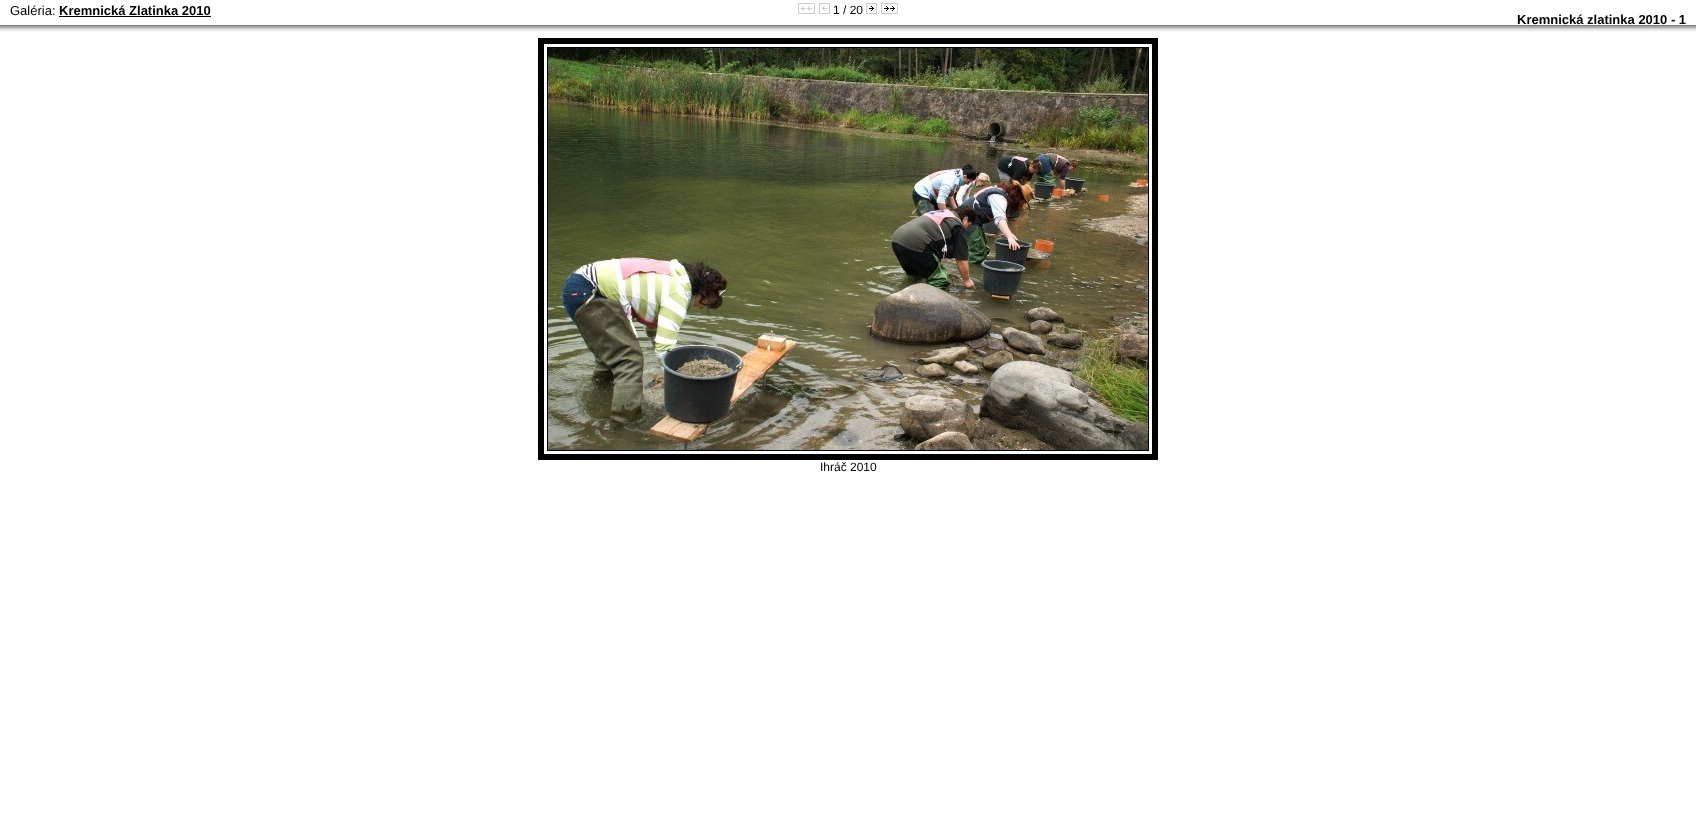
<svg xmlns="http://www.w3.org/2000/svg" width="1696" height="831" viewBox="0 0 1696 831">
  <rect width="100%" height="100%" fill="rgb(255,255,255)"/>
  <image x="0" y="25" width="1696" height="7" href="pic1.png"/>
  <text x="10" y="15" font-family="Liberation Sans" font-size="13" fill="rgb(0,0,0)">Galéria:</text>
  <text x="59" y="15" font-family="Liberation Sans" font-size="13" font-weight="bold" fill="rgb(0,0,0)">Kremnická Zlatinka 2010</text>
  <rect x="59" y="16" width="152" height="1" fill="rgb(0,0,0)"/>
  <image x="798" y="3" width="17" height="11" href="pic2.png"/>
  <image x="819" y="3" width="11" height="11" href="pic3.png"/>
  <text x="833" y="14" font-family="Liberation Sans" font-size="12" fill="rgb(0,0,0)">1 / 20</text>
  <image x="866" y="3" width="11" height="11" href="pic4.png"/>
  <image x="881" y="3" width="17" height="11" href="pic5.png"/>
  <text x="1517" y="24" font-family="Liberation Sans" font-size="13" font-weight="bold" fill="rgb(0,0,0)">Kremnická zlatinka 2010 - 1</text>
  <rect x="538.5" y="38.5" width="619" height="421" fill="none" stroke="rgb(0,0,0)"/>
  <image x="539" y="39" width="618" height="420" href="pic6.png"/>
  <text x="820" y="471" font-family="Liberation Sans" font-size="12" fill="rgb(0,0,0)">Ihráč 2010</text>
</svg>
